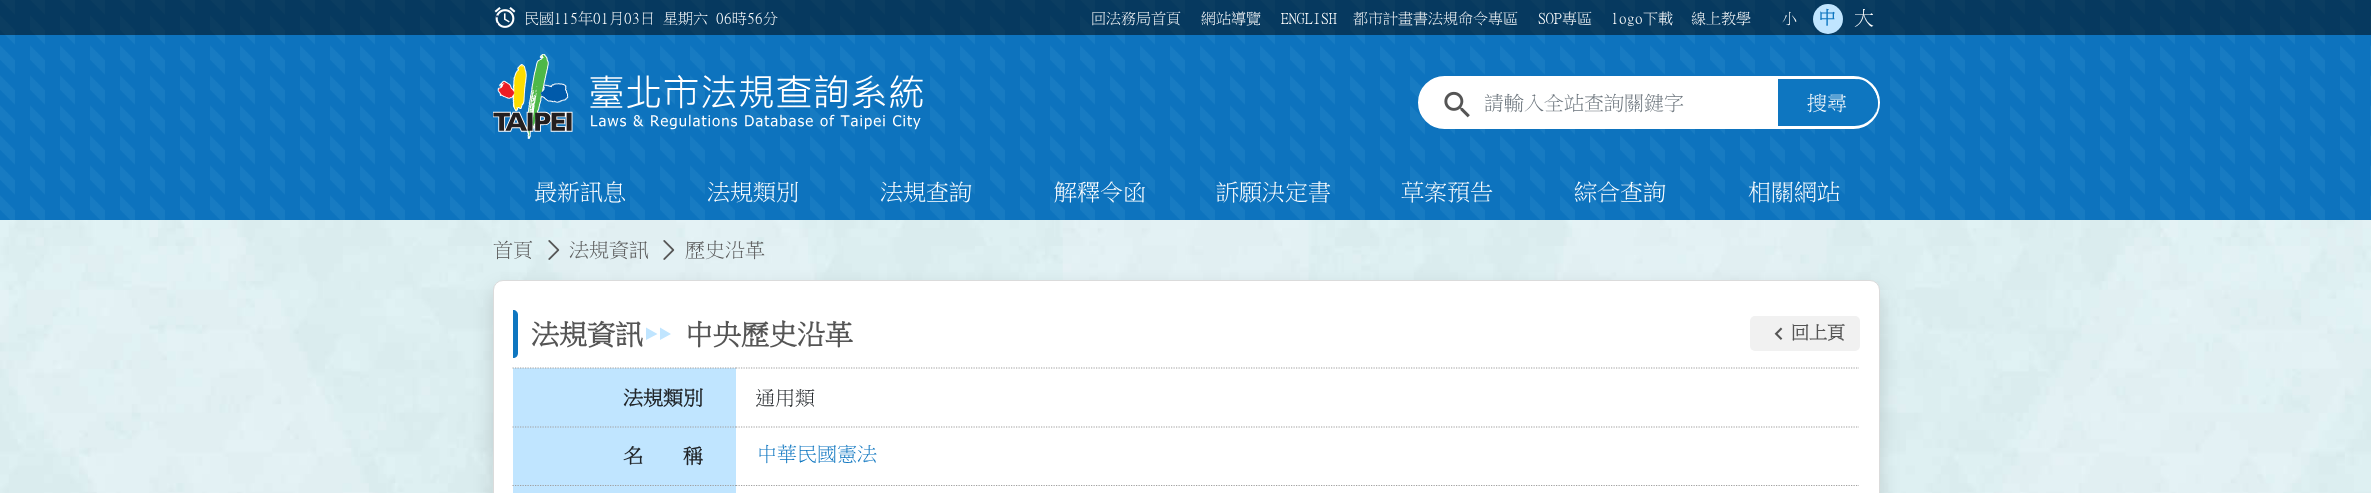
<svg xmlns="http://www.w3.org/2000/svg" width="2371" height="493" viewBox="0 0 2371 493">
  <defs>
    <clipPath id="clip1"><rect x="1420" y="79" width="458" height="47" rx="23.5"/></clipPath>
  </defs>
  <rect width="100%" height="100%" fill="rgb(255,255,255)"/>
  <image x="0" y="220" width="2371" height="273" href="pic1.png"/>
  <image x="0" y="0" width="2371" height="220" href="pic2.png"/>
  <rect x="0" y="0" width="2371" height="35" fill="rgba(0,0,0,0.5)"/>
  <image x="494" y="7" width="22" height="21" href="pic3.png"/>
  <text x="492" y="24" font-family="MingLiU" font-size="20" fill="rgb(28,56,96)">:</text>
  <g font-family="MingLiU" font-size="15" fill="rgb(255,255,255)">
    <text x="524" y="23">民國115年01月03日 星期六 06時56分</text>
    <text x="1091" y="23">回法務局首頁</text>
    <text x="1201" y="23">網站導覽</text>
    <text x="1281" y="23">ENGLISH</text>
    <text x="1353" y="23">都市計畫書法規命令專區</text>
    <text x="1538" y="23">SOP專區</text>
    <text x="1611" y="23">logo下載</text>
    <text x="1691" y="23">線上教學</text>
    <text x="1782" y="23">小</text>
  </g>
  <circle cx="1828" cy="19" r="15" fill="rgb(192,229,255)"/>
  <text x="1818" y="23" font-family="MingLiU" font-size="17.5" font-weight="bold" fill="rgb(14,118,192)">中</text>
  <text x="1854" y="24" font-family="MingLiU" font-size="20" fill="rgb(255,255,255)">大</text>
  <g font-family="MingLiU" font-size="22.5" fill="rgb(255,255,255)">
    <text x="534" y="199">最新訊息</text>
    <text x="707" y="199">法規類別</text>
    <text x="880" y="199">法規查詢</text>
    <text x="1054" y="199">解釋令函</text>
    <text x="1216" y="199">訴願決定書</text>
    <text x="1401" y="199">草案預告</text>
    <text x="1574" y="199">綜合查詢</text>
    <text x="1748" y="199">相關網站</text>
  </g>
  <image x="493" y="54" width="430" height="85" href="pic4.png"/>
  <rect x="1419.5" y="77.5" width="459" height="50" rx="25" fill="rgb(255,255,255)" stroke="rgb(255,255,255)" stroke-width="3"/>
  <image x="1444" y="91" width="26" height="27" href="pic5.png"/>
  <text x="1484" y="109" font-family="MingLiU" font-size="20" fill="rgb(108,117,125)">請輸入全站查詢關鍵字</text>
  <g clip-path="url(#clip1)">
    <path d="M1778 78H1852C1866.5 78 1878 89.5 1878 104C1878 118.5 1866.5 130 1852 130H1778Z" fill="rgb(14,118,192)"/>
  </g>
  <path d="M1779 79V126H1778V79ZM1865 81C1876 88 1882 103 1875 115C1882 99 1870 79 1852 79C1857 79 1861 79 1865 81Z" fill="rgb(14,118,192)" fill-rule="evenodd"/>
  <text x="1807" y="109" font-family="MingLiU" font-size="20" fill="rgb(255,255,255)">搜尋</text>
  <text x="493" y="256" font-family="MingLiU" font-size="20" fill="rgb(85,85,85)">首頁</text>
  <image x="548" y="240" width="12" height="20" href="pic6.png"/>
  <text x="569" y="256" font-family="MingLiU" font-size="20" fill="rgb(85,85,85)">法規資訊</text>
  <image x="663" y="240" width="12" height="20" href="pic7.png"/>
  <text x="685" y="256" font-family="MingLiU" font-size="20" fill="rgb(85,85,85)">歷史沿革</text>
  <rect x="493" y="290" width="1387" height="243" rx="10" fill="rgba(0,0,0,0.15)" filter="blur(10px)"/>
  <rect x="493.5" y="280.5" width="1386" height="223" rx="9.5" fill="rgb(255,255,255)" stroke="rgb(219,219,219)"/>
  <path d="M513 310C516 310 518 312 518 315V353C518 356 516 358 513 358Z" fill="rgb(14,118,192)"/>
  <g font-family="MingLiU" font-size="27.5" font-weight="bold" fill="rgb(85,85,85)">
    <text x="531" y="343">法規資訊</text>
    <text x="685" y="343">中央歷史沿革</text>
  </g>
  <path d="M657.5 334L646 340V327.5ZM671 334L660 340V327.5Z" fill="rgb(192,229,255)"/>
  <rect x="1750" y="316" width="110" height="35" rx="5" fill="rgb(241,241,241)"/>
  <image x="1774" y="327" width="9" height="13" href="pic8.png"/>
  <text x="1791" y="338" font-family="MingLiU" font-size="17.5" font-weight="bold" fill="rgb(85,85,85)">回上頁</text>
  <rect x="513" y="368" width="223" height="125" fill="rgb(192,229,255)"/>
  <path d="M512.5 368H736" fill="none" stroke="rgb(160,160,160)" stroke-width="1.2" stroke-dasharray="1.25 1.25"/>
  <text x="623" y="404" font-family="MingLiU" font-size="20" font-weight="bold" fill="rgb(33,37,41)">法規類別</text>
  <path d="M736 368H1859" fill="none" stroke="rgb(160,160,160)" stroke-width="1.2" stroke-dasharray="1.25 1.25"/>
  <text x="755" y="404" font-family="MingLiU" font-size="20" fill="rgb(33,37,41)">通用類</text>
  <path d="M512.5 427H736" fill="none" stroke="rgb(160,160,160)" stroke-width="1.2" stroke-dasharray="1.25 1.25"/>
  <text x="623" y="462" font-family="MingLiU" font-size="20" font-weight="bold" fill="rgb(33,37,41)">名　　稱</text>
  <path d="M736 427H1859" fill="none" stroke="rgb(160,160,160)" stroke-width="1.2" stroke-dasharray="1.25 1.25"/>
  <text x="757" y="460" font-family="MingLiU" font-size="20" fill="rgb(14,118,192)">中華民國憲法</text>
  <path d="M512.5 485.5H736" fill="none" stroke="rgb(160,160,160)" stroke-width="1.2" stroke-dasharray="1.25 1.25"/>
  <path d="M736 485.5H1859" fill="none" stroke="rgb(160,160,160)" stroke-width="1.2" stroke-dasharray="1.25 1.25"/>
</svg>
